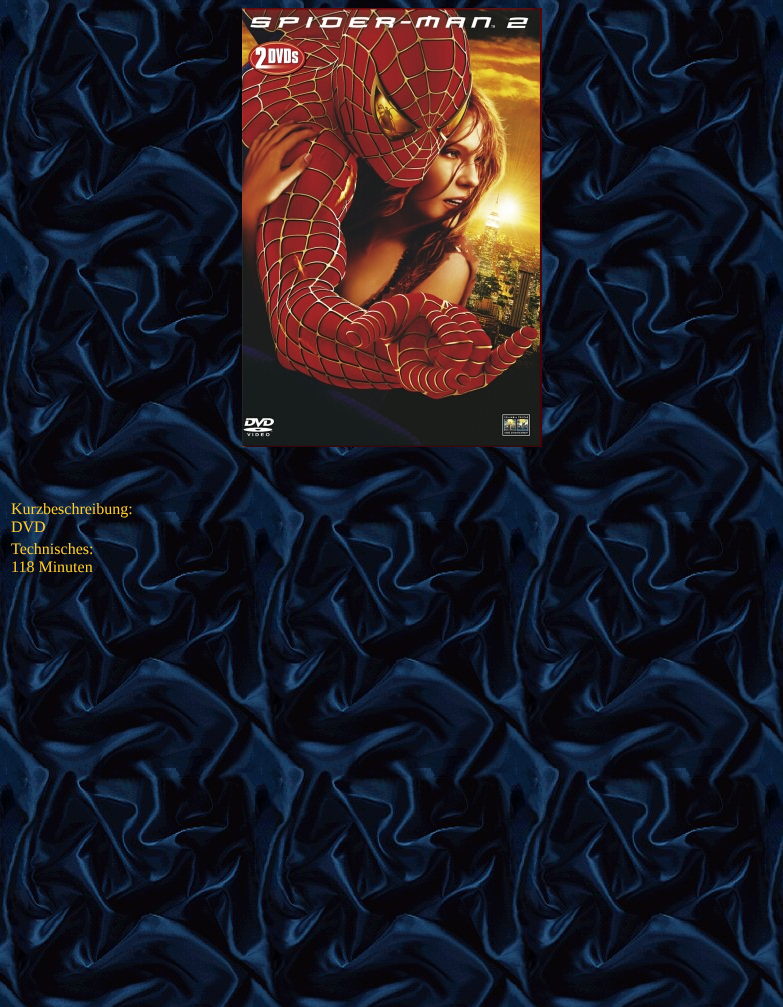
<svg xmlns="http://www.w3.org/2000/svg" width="783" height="1007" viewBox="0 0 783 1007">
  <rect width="100%" height="100%" fill="rgb(255,255,255)"/>
  <image x="0" y="0" width="783" height="1007" href="pic1.png"/>
  <image x="242" y="8" width="300" height="439" href="pic2.png"/>
  <g font-family="Liberation Serif" font-size="16" fill="rgb(255,204,51)">
    <text>
      <tspan x="11" y="514">Kurzbeschreibung:</tspan>
      <tspan x="11" y="532">DVD</tspan>
      <tspan x="11" y="554">Technisches:</tspan>
      <tspan x="11" y="572">118 Minuten</tspan>
    </text>
  </g>
</svg>
